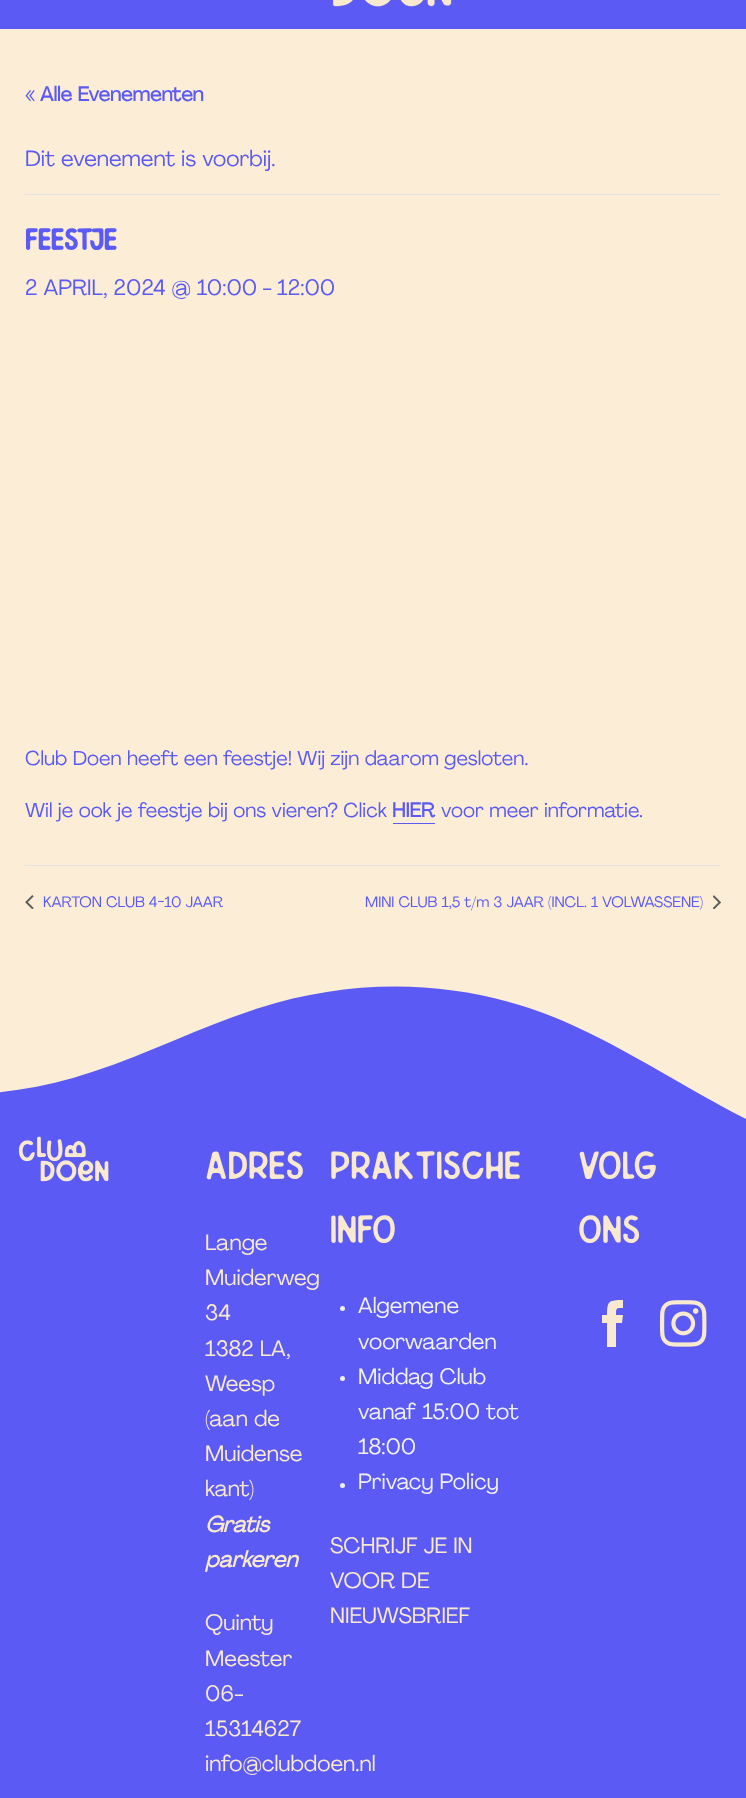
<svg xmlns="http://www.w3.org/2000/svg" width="746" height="1798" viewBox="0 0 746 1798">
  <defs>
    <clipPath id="clip1"><rect x="0" y="985" width="746" height="200"/></clipPath>
  </defs>
  <rect width="100%" height="100%" fill="rgb(251,237,214)"/>
  <rect x="0" y="0" width="746" height="29" fill="rgb(91,90,244)"/>
  <image x="332" y="0" width="120" height="7" href="pic1.png"/>
  <text x="25" y="101" font-family="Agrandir" font-size="20" font-weight="bold" fill="rgb(91,90,244)">« Alle Evenementen</text>
  <rect x="25" y="194" width="696" height="1" fill="rgb(228,228,228)"/>
  <text x="25" y="166" font-family="Agrandir" font-size="22" fill="rgb(91,90,244)">Dit evenement is voorbij.</text>
  <text x="25" y="250" font-family="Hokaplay" font-size="30" font-weight="bold" fill="rgb(91,90,244)">FEESTJE</text>
  <g font-family="Agrandir" font-size="22" fill="rgb(91,90,244)">
    <text x="25" y="295">2 APRIL, 2024 @ 10:00</text>
    <text x="262" y="295">- 12:00</text>
  </g>
  <g font-family="Agrandir" font-size="20" fill="rgb(91,90,244)">
    <text x="25" y="765">Club Doen heeft een feestje! Wij zijn daarom gesloten.</text>
    <text x="25" y="817">Wil je ook je feestje bij ons vieren? Click</text>
  </g>
  <text x="392" y="817" font-family="Agrandir" font-size="20" font-weight="bold" fill="rgb(91,90,244)">HIER</text>
  <rect x="393" y="823" width="42" height="1" fill="rgb(91,90,244)"/>
  <text x="441" y="817" font-family="Agrandir" font-size="20" fill="rgb(91,90,244)">voor meer informatie.</text>
  <rect x="25" y="865" width="696" height="1" fill="rgb(228,228,228)"/>
  <image x="25" y="895" width="9" height="14" href="pic2.png"/>
  <g font-family="Agrandir" font-size="15" fill="rgb(91,90,244)">
    <text x="43" y="907">KARTON CLUB 4-10 JAAR</text>
    <text x="365" y="907">MINI CLUB 1,5 t/m 3 JAAR (INCL. 1 VOLWASSENE)</text>
  </g>
  <image x="713" y="895" width="8" height="14" href="pic3.png"/>
  <rect x="0" y="986" width="746" height="812" fill="rgb(91,90,244)"/>
  <g clip-path="url(#clip1)">
    <path d="M73 1078C136 1060 196 1028 259 1008C348 980 440 979 529 1008C615 1036 704 1104 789 1139C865 1169 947 1182 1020 1144V984H-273V1029C-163 1094-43 1111 73 1078Z" fill="rgb(251,237,214)"/>
  </g>
  <image x="18" y="1136" width="91" height="46" href="pic4.png"/>
  <text x="205" y="1179" font-family="Hokaplay" font-size="39.5" fill="rgb(249,233,206)">ADRES</text>
  <g font-family="Agrandir" font-size="22" fill="rgb(249,233,206)">
    <text>
      <tspan x="205" y="1250">Lange</tspan>
      <tspan x="205" y="1285">Muiderweg</tspan>
      <tspan x="205" y="1320">34</tspan>
      <tspan x="205" y="1356">1382 LA,</tspan>
      <tspan x="205" y="1391">Weesp</tspan>
      <tspan x="205" y="1426">(aan de</tspan>
      <tspan x="205" y="1461">Muidense</tspan>
      <tspan x="205" y="1496">kant)</tspan>
    </text>
  </g>
  <g font-family="Agrandir" font-size="22" font-weight="bold" font-style="italic" fill="rgb(249,233,206)">
    <text>
      <tspan x="205" y="1532">Gratis</tspan>
      <tspan x="205" y="1567">parkeren</tspan>
    </text>
  </g>
  <g font-family="Agrandir" font-size="22" fill="rgb(249,233,206)">
    <text>
      <tspan x="205" y="1630">Quinty</tspan>
      <tspan x="205" y="1666">Meester</tspan>
      <tspan x="205" y="1701">06-</tspan>
      <tspan x="205" y="1736">15314627</tspan>
      <tspan x="205" y="1771">info@clubdoen.nl</tspan>
    </text>
  </g>
  <g font-family="Hokaplay" font-size="39.5" fill="rgb(249,233,206)">
    <text>
      <tspan x="330" y="1179">PRAKTISCHE</tspan>
      <tspan x="330" y="1243">INFO</tspan>
    </text>
  </g>
  <circle cx="342.5" cy="1308.5" r="2.5" fill="rgb(241,241,241)"/>
  <g font-family="Agrandir" font-size="22" fill="rgb(241,241,241)">
    <text>
      <tspan x="358" y="1313">Algemene</tspan>
      <tspan x="358" y="1349">voorwaarden</tspan>
    </text>
  </g>
  <circle cx="342.5" cy="1378.5" r="2.5" fill="rgb(241,241,241)"/>
  <g font-family="Agrandir" font-size="22" fill="rgb(241,241,241)">
    <text>
      <tspan x="358" y="1384">Middag Club</tspan>
      <tspan x="358" y="1419">vanaf 15:00 tot</tspan>
      <tspan x="358" y="1454">18:00</tspan>
    </text>
  </g>
  <circle cx="342.5" cy="1485.5" r="2.5" fill="rgb(241,241,241)"/>
  <text x="358" y="1489" font-family="Agrandir" font-size="22" fill="rgb(241,241,241)">Privacy Policy</text>
  <g font-family="Agrandir" font-size="22" fill="rgb(249,233,206)">
    <text>
      <tspan x="330" y="1553">SCHRIJF JE IN</tspan>
      <tspan x="330" y="1588">VOOR DE</tspan>
      <tspan x="330" y="1623">NIEUWSBRIEF</tspan>
    </text>
  </g>
  <g font-family="Hokaplay" font-size="39.5" fill="rgb(249,233,206)">
    <text>
      <tspan x="578" y="1179">VOLG</tspan>
      <tspan x="578" y="1243">ONS</tspan>
    </text>
  </g>
  <path d="M616 1347H607V1323H602V1315H607C607 1301 609 1300 623 1300V1308C616 1308 616 1308 616 1315H623L622 1323H616Z" fill="rgb(249,233,206)"/>
  <image x="660" y="1300" width="47" height="47" href="pic5.png"/>
</svg>
